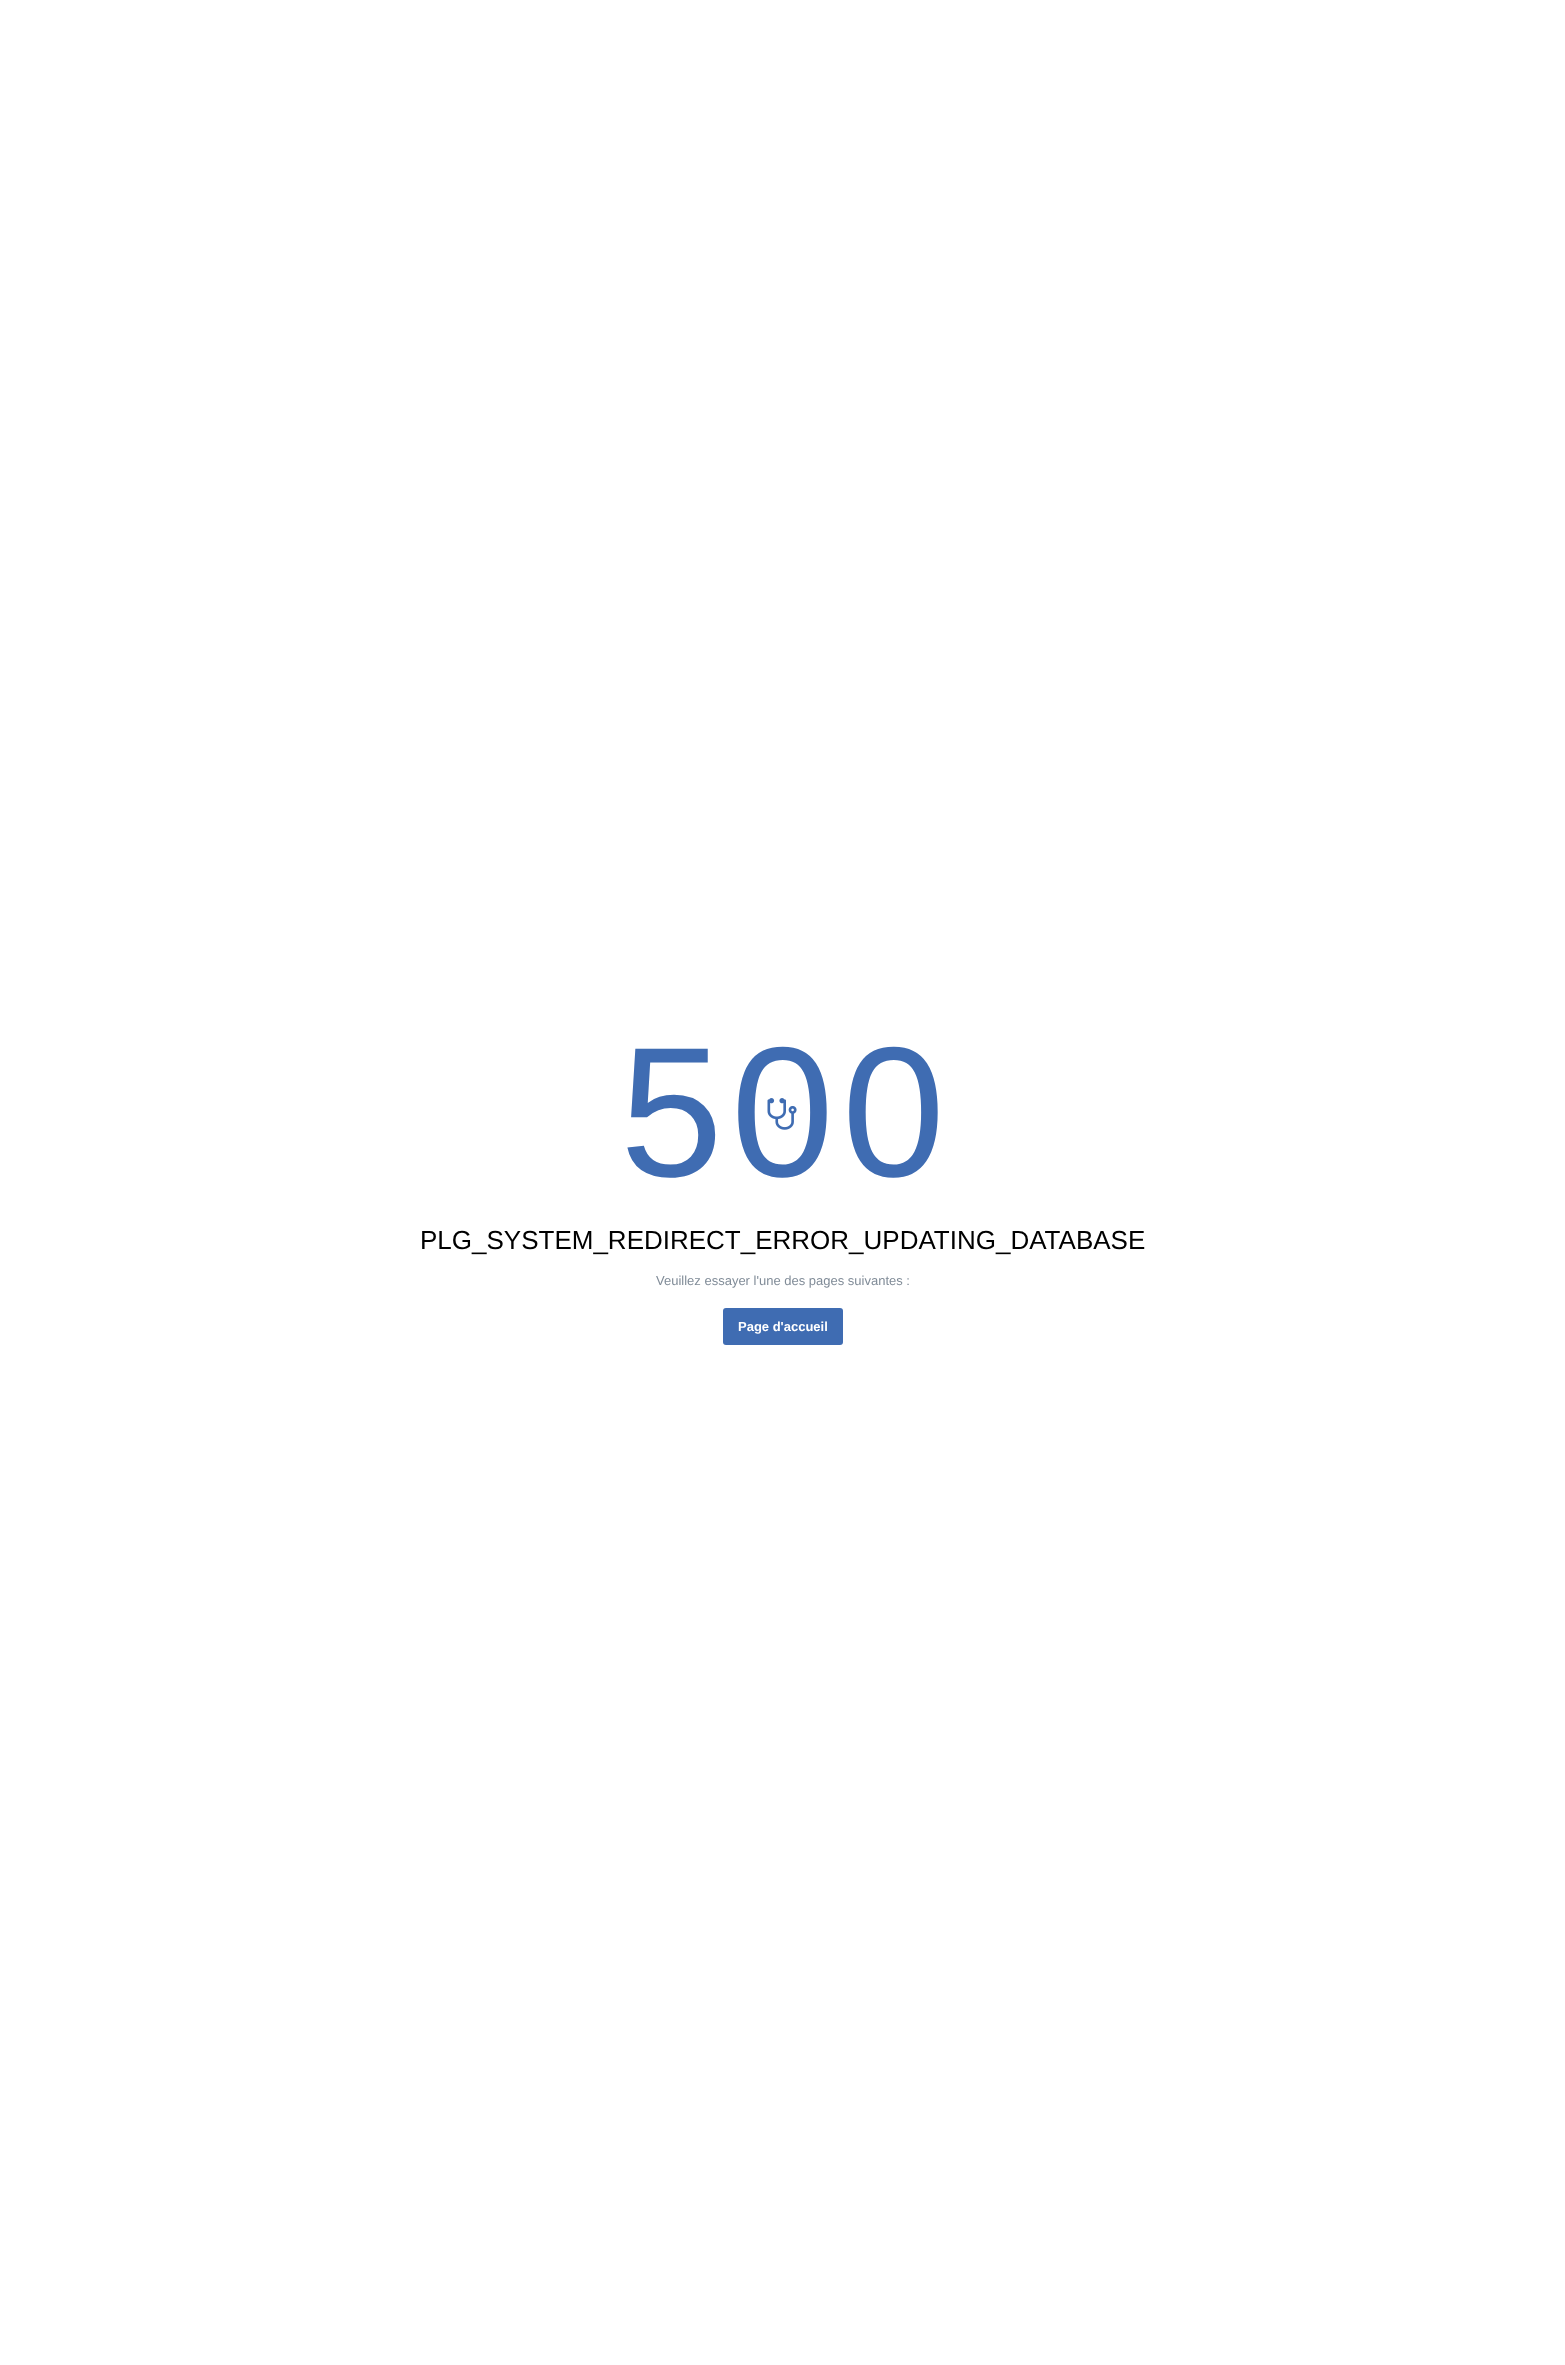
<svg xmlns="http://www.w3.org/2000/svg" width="1565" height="2365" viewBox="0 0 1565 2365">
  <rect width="100%" height="100%" fill="rgb(255,255,255)"/>
  <g font-family="Liberation Sans" font-size="185" fill="rgb(63,108,178)">
    <text x="620" y="1176">5</text>
    <text x="731" y="1176">0</text>
  </g>
  <image x="767" y="1098" width="30" height="32" href="pic1.png"/>
  <text x="842" y="1176" font-family="Liberation Sans" font-size="185" fill="rgb(63,108,178)">0</text>
  <text x="420" y="1249" font-family="Liberation Sans" font-size="26" fill="rgb(0,0,0)">PLG_SYSTEM_REDIRECT_ERROR_UPDATING_DATABASE</text>
  <text x="656" y="1285" font-family="Liberation Sans" font-size="13" fill="rgb(129,140,152)">Veuillez essayer l'une des pages suivantes :</text>
  <rect x="723" y="1308" width="120" height="37" rx="3" fill="rgb(63,108,178)"/>
  <text x="738" y="1331" font-family="Liberation Sans" font-size="13" font-weight="bold" fill="rgb(255,255,255)">Page d'accueil</text>
</svg>
